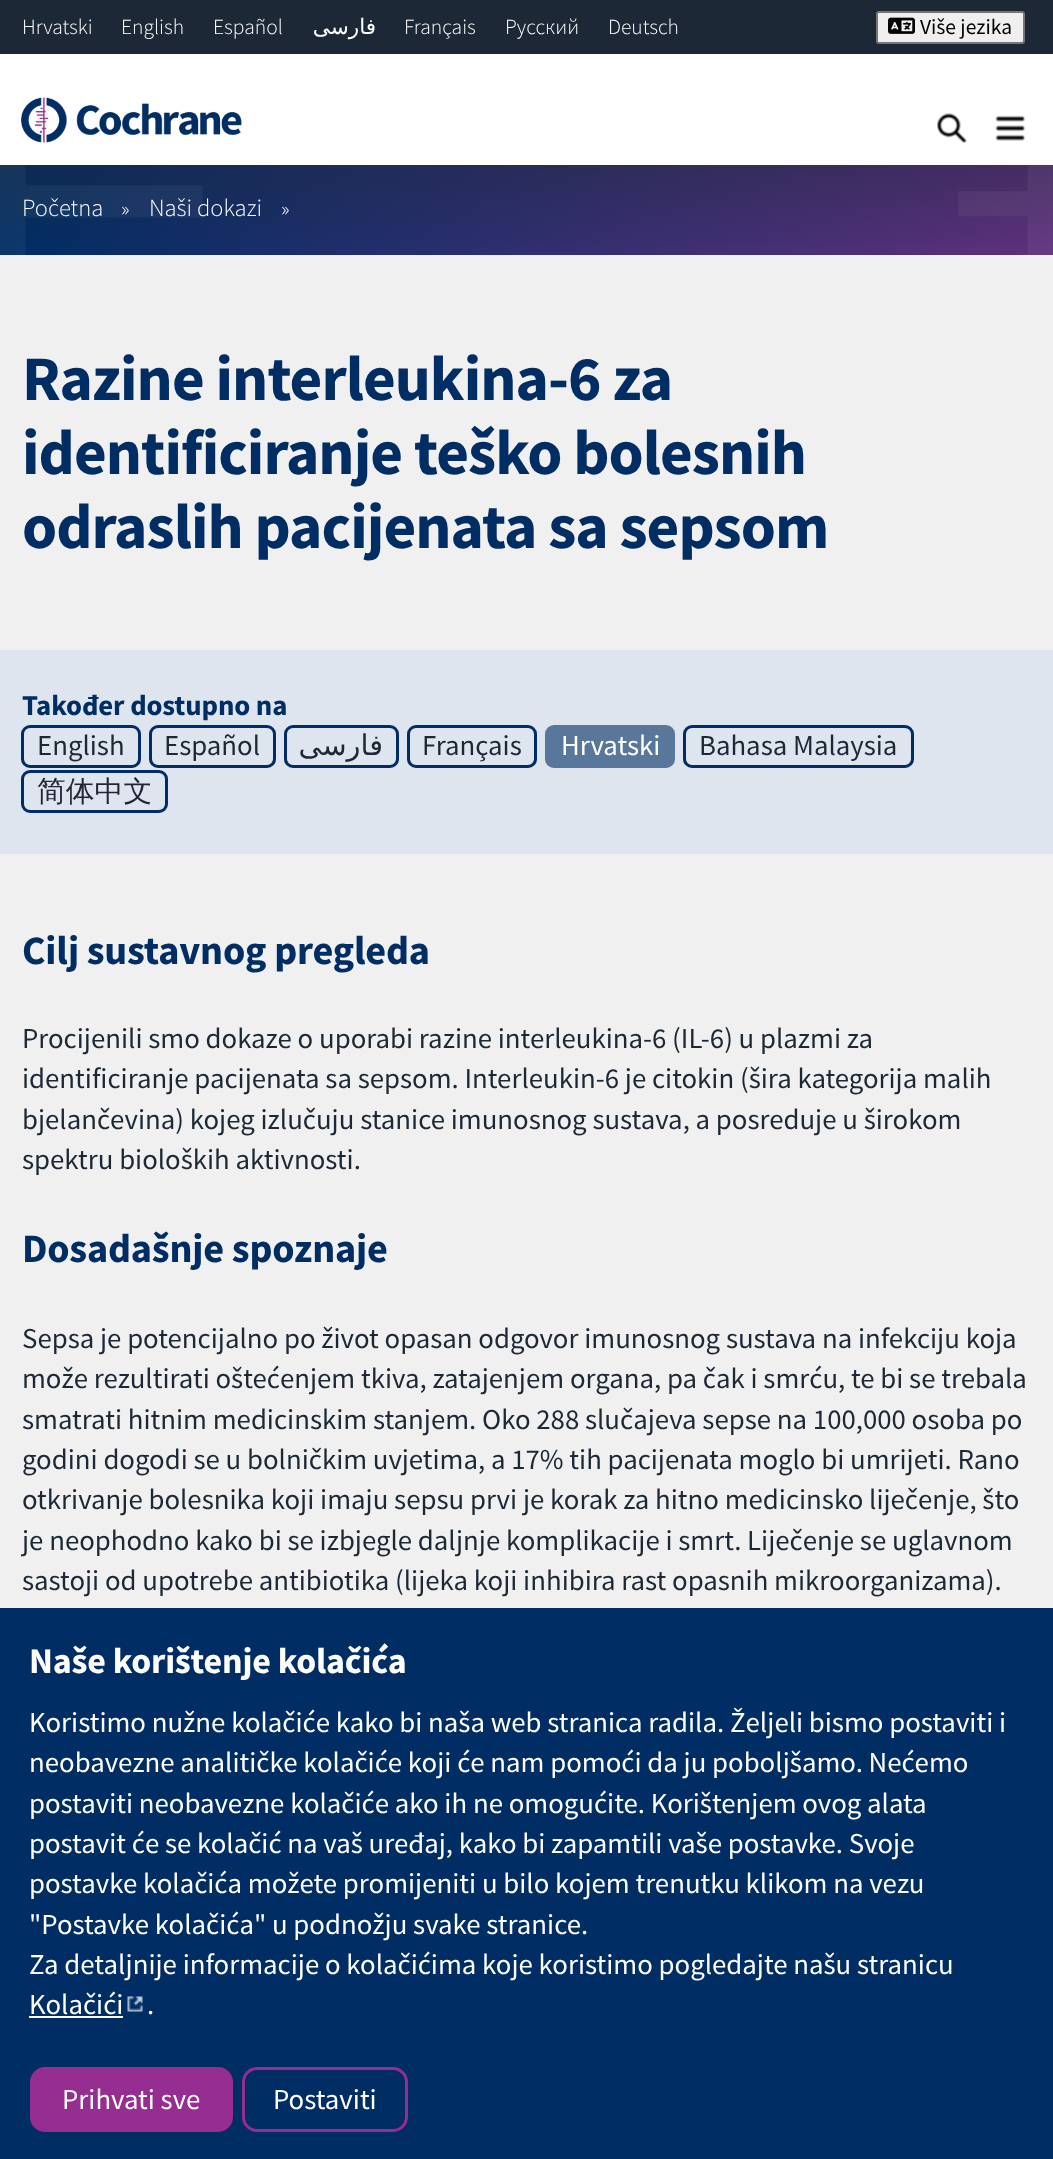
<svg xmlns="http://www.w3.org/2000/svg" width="1053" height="2159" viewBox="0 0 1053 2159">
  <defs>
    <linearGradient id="g1" gradientUnits="userSpaceOnUse" x1="0" y1="210" x2="1053" y2="210"><stop offset="0" stop-color="rgb(0,45,100)"/><stop offset="1" stop-color="rgb(95,48,125)"/></linearGradient>
    <linearGradient id="g2" gradientUnits="userSpaceOnUse" x1="527" y1="21" x2="527" y2="255"><stop offset="0" stop-color="rgb(28,40,54)"/><stop offset="1" stop-color="rgb(28,40,54)" stop-opacity="0"/></linearGradient>
  </defs>
  <rect width="100%" height="100%" fill="rgb(240,240,240)"/>
  <rect x="0" y="0" width="1053" height="54" fill="rgb(28,40,54)"/>
  <rect x="0" y="54" width="1053" height="111" fill="rgb(255,255,255)"/>
  <g font-family="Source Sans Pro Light" font-size="21.5" font-weight="300" fill="rgb(255,255,255)">
    <text x="22" y="34">Hrvatski</text>
    <text x="121" y="34">English</text>
    <text x="213" y="34">Español</text>
  </g>
  <text x="376" y="34" font-family="DejaVu Sans" font-size="21.5" direction="rtl" fill="rgb(255,255,255)">فارسی</text>
  <g font-family="Source Sans Pro Light" font-size="21.5" font-weight="300" fill="rgb(255,255,255)">
    <text x="404" y="34">Français</text>
    <text x="505" y="34">Русский</text>
    <text x="608" y="34">Deutsch</text>
  </g>
  <rect x="877" y="12" width="147" height="31" rx="2" fill="rgb(239,239,239)" stroke="rgb(118,118,118)" stroke-width="2"/>
  <image x="888" y="17" width="27" height="17" href="pic1.png"/>
  <text x="920" y="34" font-family="Source Sans Pro" font-size="21.5" fill="rgb(0,0,0)">Više jezika</text>
  <image x="21" y="97" width="221" height="46" href="pic2.png"/>
  <image x="937" y="113" width="30" height="30" href="pic3.png"/>
  <image x="995" y="115" width="30" height="26" href="pic4.png"/>
  <rect x="0" y="165" width="1053" height="90" fill="url(#g1)"/>
  <rect x="0" y="165" width="1053" height="81" fill="url(#g2)"/>
  <image x="0" y="165" width="203" height="90" href="pic5.png"/>
  <image x="958" y="165" width="95" height="90" href="pic6.png"/>
  <text x="22" y="216" font-family="Source Sans Pro Light" font-size="24.5" font-weight="300" fill="rgb(255,255,255)">Početna</text>
  <text x="121" y="216" font-family="Source Sans Pro Light" font-size="21.5" font-weight="300" fill="rgb(255,255,255)">»</text>
  <text x="149" y="216" font-family="Source Sans Pro Light" font-size="24.5" font-weight="300" fill="rgb(255,255,255)">Naši dokazi</text>
  <text x="281" y="216" font-family="Source Sans Pro Light" font-size="21.5" font-weight="300" fill="rgb(255,255,255)">»</text>
  <g font-family="Source Sans Pro" font-size="63.4" font-weight="bold" letter-spacing="-0.95" fill="rgb(0,45,100)">
    <text>
      <tspan x="22" y="400">Razine interleukina-6 za</tspan>
      <tspan x="22" y="474">identificiranje teško bolesnih</tspan>
      <tspan x="22" y="548">odraslih pacijenata sa sepsom</tspan>
    </text>
  </g>
  <rect x="0" y="650" width="1053" height="204" fill="rgb(222,229,238)"/>
  <text x="22" y="715" font-family="Source Sans Pro" font-size="28.8" font-weight="bold" letter-spacing="-0.1" fill="rgb(0,45,100)">Također dostupno na</text>
  <rect x="22.5" y="726.5" width="117" height="40" rx="7.5" fill="none" stroke="rgb(0,45,100)" stroke-width="3"/>
  <text x="37" y="755" font-family="Source Sans Pro" font-size="28.8" fill="rgb(28,40,54)">English</text>
  <rect x="150.5" y="726.5" width="124" height="40" rx="7.5" fill="none" stroke="rgb(0,45,100)" stroke-width="3"/>
  <text x="164" y="755" font-family="Source Sans Pro" font-size="28.8" fill="rgb(28,40,54)">Español</text>
  <rect x="285.5" y="726.5" width="112" height="40" rx="7.5" fill="none" stroke="rgb(0,45,100)" stroke-width="3"/>
  <text x="383" y="755" font-family="DejaVu Sans" font-size="28.8" direction="rtl" fill="rgb(28,40,54)">فارسی</text>
  <rect x="408.5" y="726.5" width="127" height="40" rx="7.5" fill="none" stroke="rgb(0,45,100)" stroke-width="3"/>
  <text x="422" y="755" font-family="Source Sans Pro" font-size="28.8" fill="rgb(28,40,54)">Français</text>
  <rect x="545" y="725" width="130" height="43" rx="9" fill="rgb(89,119,155)"/>
  <text x="561" y="755" font-family="Source Sans Pro" font-size="28.8" fill="rgb(255,255,255)">Hrvatski</text>
  <rect x="684.5" y="726.5" width="228" height="40" rx="7.5" fill="none" stroke="rgb(0,45,100)" stroke-width="3"/>
  <text x="699" y="755" font-family="Source Sans Pro" font-size="28.8" fill="rgb(28,40,54)">Bahasa Malaysia</text>
  <rect x="22.5" y="771.5" width="144" height="40" rx="7.5" fill="none" stroke="rgb(0,45,100)" stroke-width="3"/>
  <text x="37" y="801" font-family="WenQuanYi Zen Hei" font-size="28.8" font-weight="500" fill="rgb(28,40,54)">简体中文</text>
  <text x="22" y="964" font-family="Source Sans Pro" font-size="40.25" font-weight="bold" letter-spacing="-0.2" fill="rgb(0,45,100)">Cilj sustavnog pregleda</text>
  <g font-family="Source Sans Pro" font-size="28.8" fill="rgb(28,40,54)">
    <text>
      <tspan x="22" y="1048">Procijenili smo dokaze o uporabi razine interleukina-6 (IL-6) u plazmi za</tspan>
      <tspan x="22" y="1088">identificiranje pacijenata sa sepsom. Interleukin-6 je citokin (šira kategorija malih</tspan>
      <tspan x="22" y="1129">bjelančevina) kojeg izlučuju stanice imunosnog sustava, a posreduje u širokom</tspan>
      <tspan x="22" y="1169">spektru bioloških aktivnosti.</tspan>
    </text>
  </g>
  <text x="22" y="1262" font-family="Source Sans Pro" font-size="40.25" font-weight="bold" letter-spacing="-0.2" fill="rgb(0,45,100)">Dosadašnje spoznaje</text>
  <g font-family="Source Sans Pro" font-size="28.8" fill="rgb(28,40,54)">
    <text>
      <tspan x="22" y="1348">Sepsa je potencijalno po život opasan odgovor imunosnog sustava na infekciju koja</tspan>
      <tspan x="22" y="1388">može rezultirati oštećenjem tkiva, zatajenjem organa, pa čak i smrću, te bi se trebala</tspan>
      <tspan x="22" y="1429">smatrati hitnim medicinskim stanjem. Oko 288 slučajeva sepse na 100,000 osoba po</tspan>
      <tspan x="22" y="1469">godini dogodi se u bolničkim uvjetima, a 17% tih pacijenata moglo bi umrijeti. Rano</tspan>
      <tspan x="22" y="1509">otkrivanje bolesnika koji imaju sepsu prvi je korak za hitno medicinsko liječenje, što</tspan>
      <tspan x="22" y="1550">je neophodno kako bi se izbjegle daljnje komplikacije i smrt. Liječenje se uglavnom</tspan>
      <tspan x="22" y="1590">sastoji od upotrebe antibiotika (lijeka koji inhibira rast opasnih mikroorganizama).</tspan>
    </text>
  </g>
  <rect x="0" y="1608" width="1053" height="551" fill="rgb(0,45,100)"/>
  <text x="29" y="1673" font-family="Source Sans Pro" font-size="36" font-weight="bold" letter-spacing="-0.2" fill="rgb(255,255,255)">Naše korištenje kolačića</text>
  <g font-family="Source Sans Pro" font-size="28.8" fill="rgb(255,255,255)">
    <text>
      <tspan x="29" y="1732">Koristimo nužne kolačiće kako bi naša web stranica radila. Željeli bismo postaviti i</tspan>
      <tspan x="29" y="1772">neobavezne analitičke kolačiće koji će nam pomoći da ju poboljšamo. Nećemo</tspan>
      <tspan x="29" y="1813">postaviti neobavezne kolačiće ako ih ne omogućite. Korištenjem ovog alata</tspan>
      <tspan x="29" y="1853">postavit će se kolačić na vaš uređaj, kako bi zapamtili vaše postavke. Svoje</tspan>
      <tspan x="29" y="1893">postavke kolačića možete promijeniti u bilo kojem trenutku klikom na vezu</tspan>
      <tspan x="29" y="1934">"Postavke kolačića" u podnožju svake stranice.</tspan>
      <tspan x="29" y="1974">Za detaljnije informacije o kolačićima koje koristimo pogledajte našu stranicu</tspan>
      <tspan x="29" y="2014">Kolačići</tspan>
    </text>
  </g>
  <rect x="29" y="2016" width="94" height="2" fill="rgb(255,255,255)"/>
  <image x="127" y="1996" width="16" height="16" href="pic7.png"/>
  <text x="147" y="2014" font-family="Source Sans Pro" font-size="28.8" fill="rgb(255,255,255)">.</text>
  <rect x="31.5" y="2068.5" width="200" height="62" rx="13.5" fill="rgb(150,45,145)" stroke="rgb(150,45,145)" stroke-width="3"/>
  <text x="62" y="2109" font-family="Source Sans Pro" font-size="28.8" fill="rgb(255,255,255)">Prihvati sve</text>
  <rect x="243.5" y="2068.5" width="163" height="62" rx="13.5" fill="none" stroke="rgb(150,45,145)" stroke-width="3"/>
  <text x="273" y="2109" font-family="Source Sans Pro" font-size="28.8" fill="rgb(255,255,255)">Postaviti</text>
</svg>
